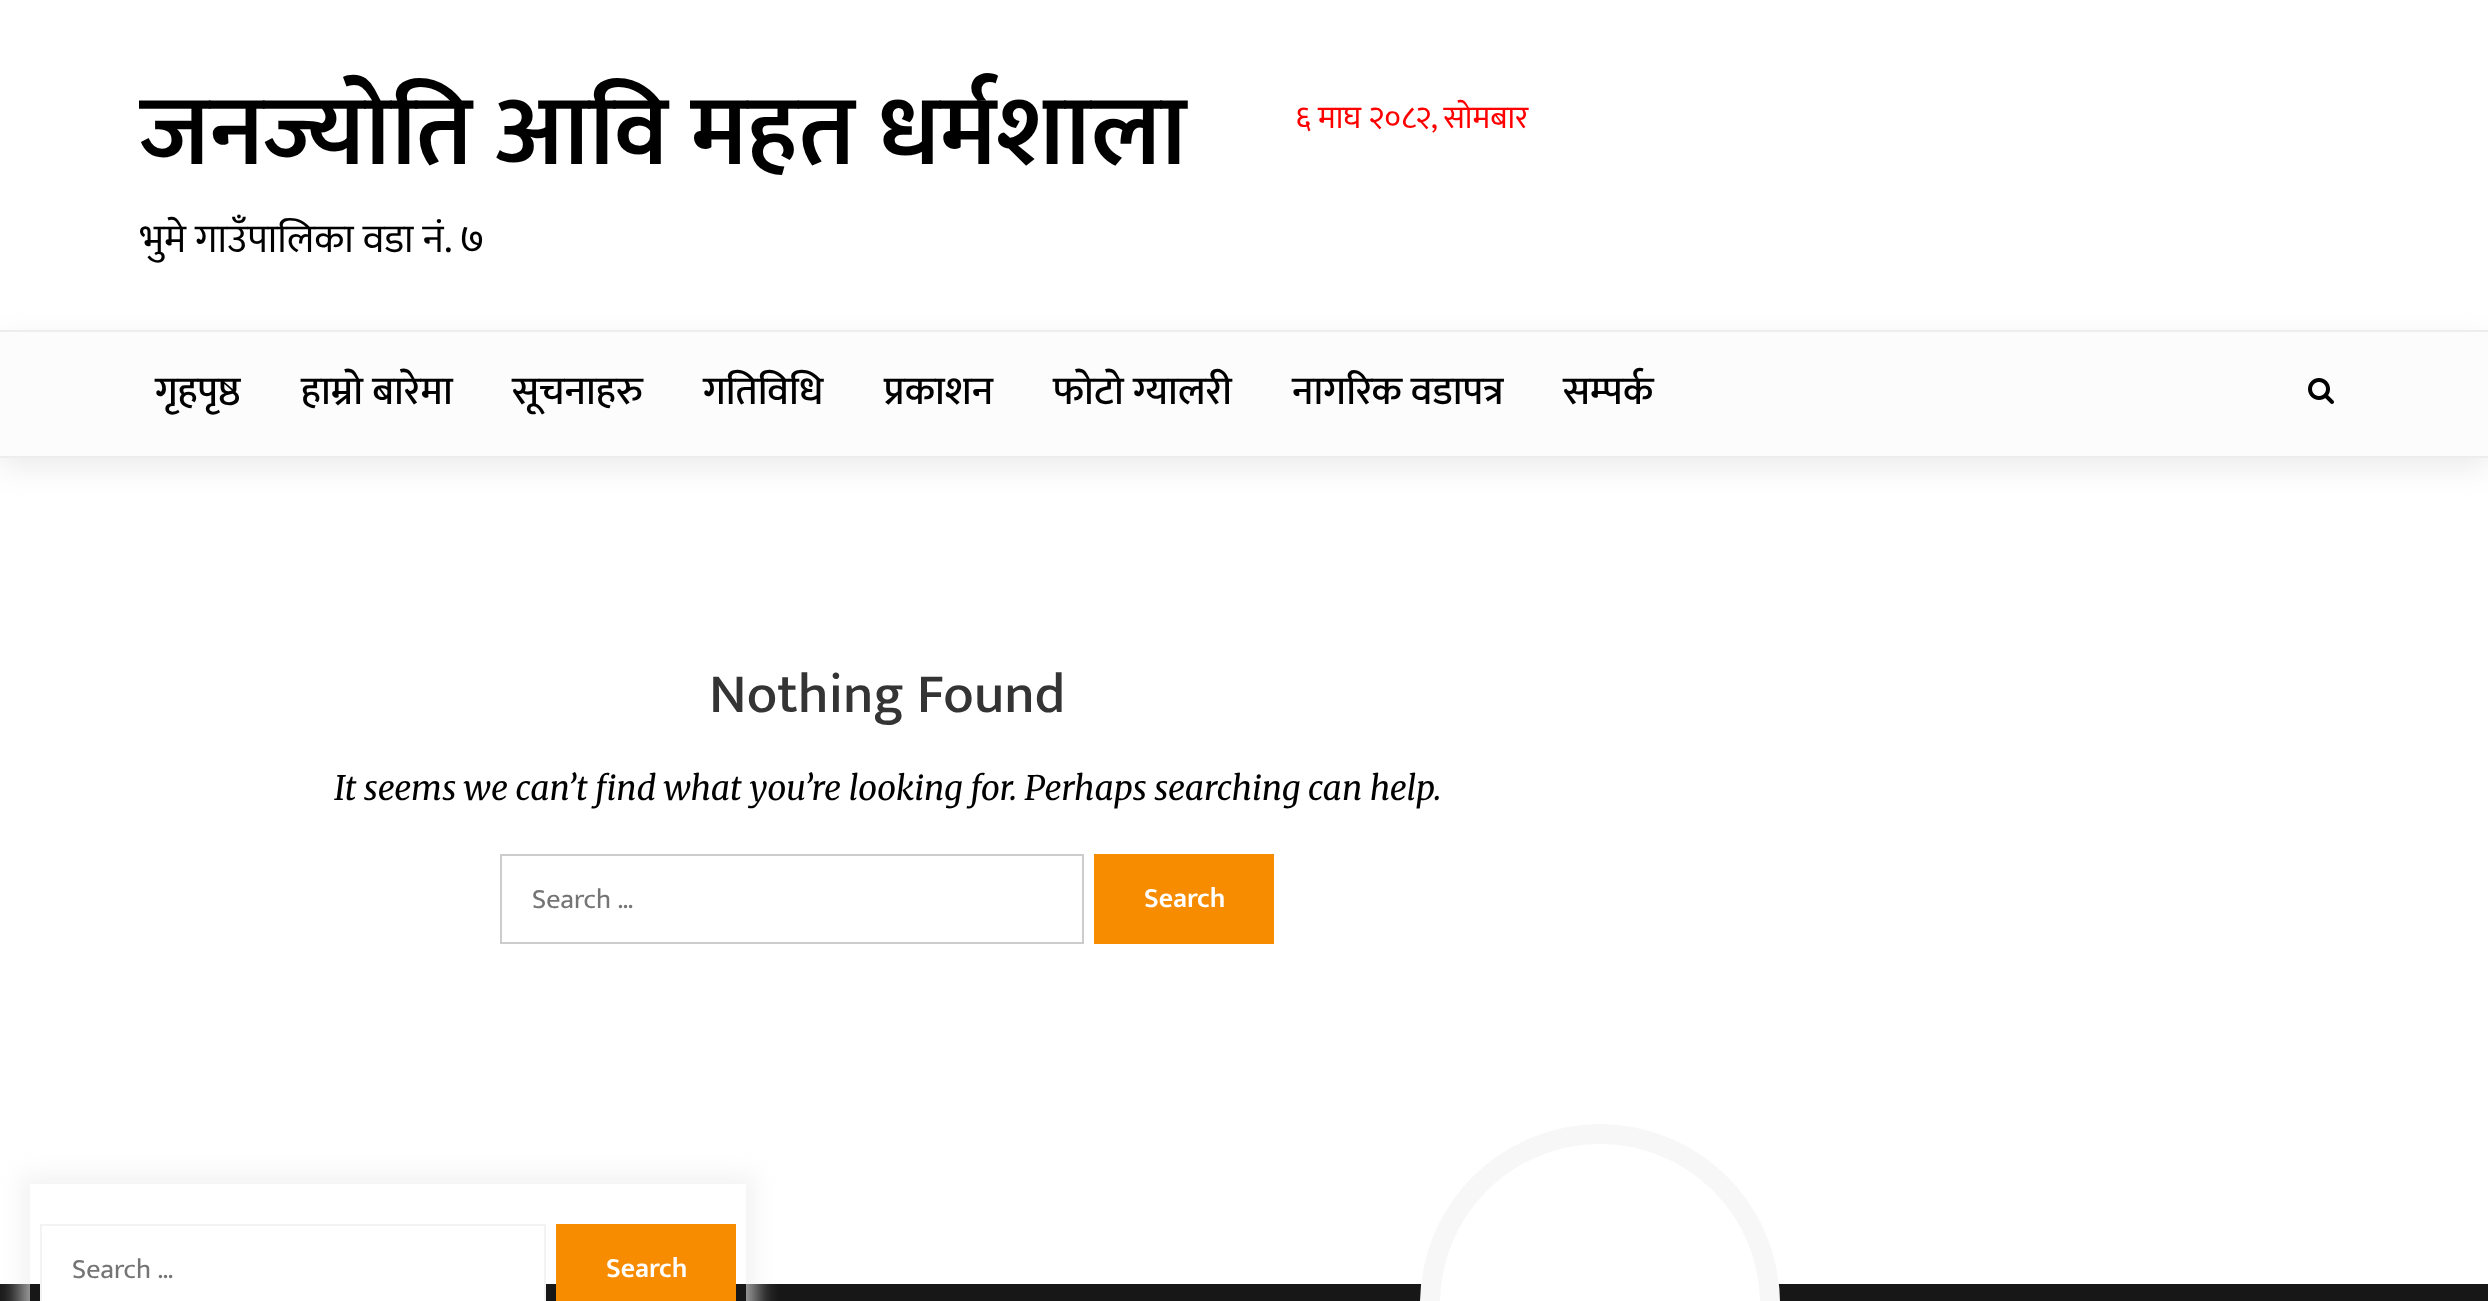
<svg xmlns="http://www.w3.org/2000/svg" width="2488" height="1301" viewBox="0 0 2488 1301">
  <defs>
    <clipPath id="clip1"><path d="M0 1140H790V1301H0ZM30 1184H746V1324H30Z" clip-rule="evenodd"/></clipPath>
  </defs>
  <rect width="100%" height="100%" fill="rgb(255,255,255)"/>
  <text x="140" y="164" font-family="Mukta" font-size="100" font-weight="600" fill="rgb(0,0,0)">जनज्योति आवि महत धर्मशाला</text>
  <text x="140" y="252" font-family="Mukta" font-size="40" fill="rgb(0,0,0)">भुमे गाउँपालिका वडा नं. ७</text>
  <text x="1295" y="128" font-family="Mukta" font-size="32" fill="rgb(255,0,0)">६ माघ २०८२, सोमबार</text>
  <rect x="0" y="340" width="2488" height="128" fill="rgba(0,0,0,0.08)" filter="blur(15px)"/>
  <rect x="0" y="332" width="2488" height="124" fill="rgb(252,252,252)"/>
  <rect x="0" y="330" width="2488" height="2" fill="rgb(237,237,237)"/>
  <rect x="0" y="456" width="2488" height="2" fill="rgb(237,237,237)"/>
  <g font-family="Mukta" font-size="40" font-weight="500" fill="rgb(0,0,0)">
    <text x="155" y="404">गृहपृष्ठ</text>
    <text x="301" y="404">हाम्रो बारेमा</text>
    <text x="512" y="404">सूचनाहरु</text>
    <text x="703" y="404">गतिविधि</text>
    <text x="884" y="404">प्रकाशन</text>
    <text x="1053" y="404">फोटो ग्यालरी</text>
    <text x="1292" y="404">नागरिक वडापत्र</text>
    <text x="1563" y="404">सम्पर्क</text>
  </g>
  <image x="2308" y="378" width="26" height="26" href="pic1.png"/>
  <text x="709" y="712" font-family="Mukta" font-size="56" font-weight="500" fill="rgb(52,52,52)">Nothing Found</text>
  <text x="334" y="800" font-family="Merriweather" font-size="33.6" font-weight="300" font-style="italic" fill="rgb(0,0,0)">It seems we can’t find what you’re looking for. Perhaps searching can help.</text>
  <rect x="501" y="855" width="582" height="88" fill="none" stroke="rgb(204,204,204)" stroke-width="2"/>
  <text x="532" y="908" font-family="Mukta" font-size="28" fill="rgb(117,117,117)">Search …</text>
  <rect x="1094" y="854" width="180" height="90" fill="rgb(248,140,0)"/>
  <text x="1144" y="907" font-family="Mukta" font-size="28" font-weight="600" fill="rgb(255,255,255)">Search</text>
  <rect x="0" y="1284" width="2488" height="17" fill="rgb(23,23,23)"/>
  <circle cx="1600" cy="1304" r="170" fill="rgb(255,255,255)" stroke="rgb(247,247,247)" stroke-width="20"/>
  <g clip-path="url(#clip1)">
    <rect x="20" y="1174" width="736" height="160" fill="rgba(238,238,238,0.7)" filter="blur(11px)"/>
  </g>
  <rect x="42" y="1284" width="502" height="17" fill="rgb(255,255,255)"/>
  <rect x="41" y="1225" width="504" height="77" fill="none" stroke="rgb(243,243,243)" stroke-width="2"/>
  <text x="72" y="1278" font-family="Mukta" font-size="28" fill="rgb(117,117,117)">Search …</text>
  <rect x="556" y="1224" width="180" height="77" fill="rgb(248,140,0)"/>
  <text x="606" y="1277" font-family="Mukta" font-size="28" font-weight="600" fill="rgb(255,255,255)">Search</text>
</svg>
